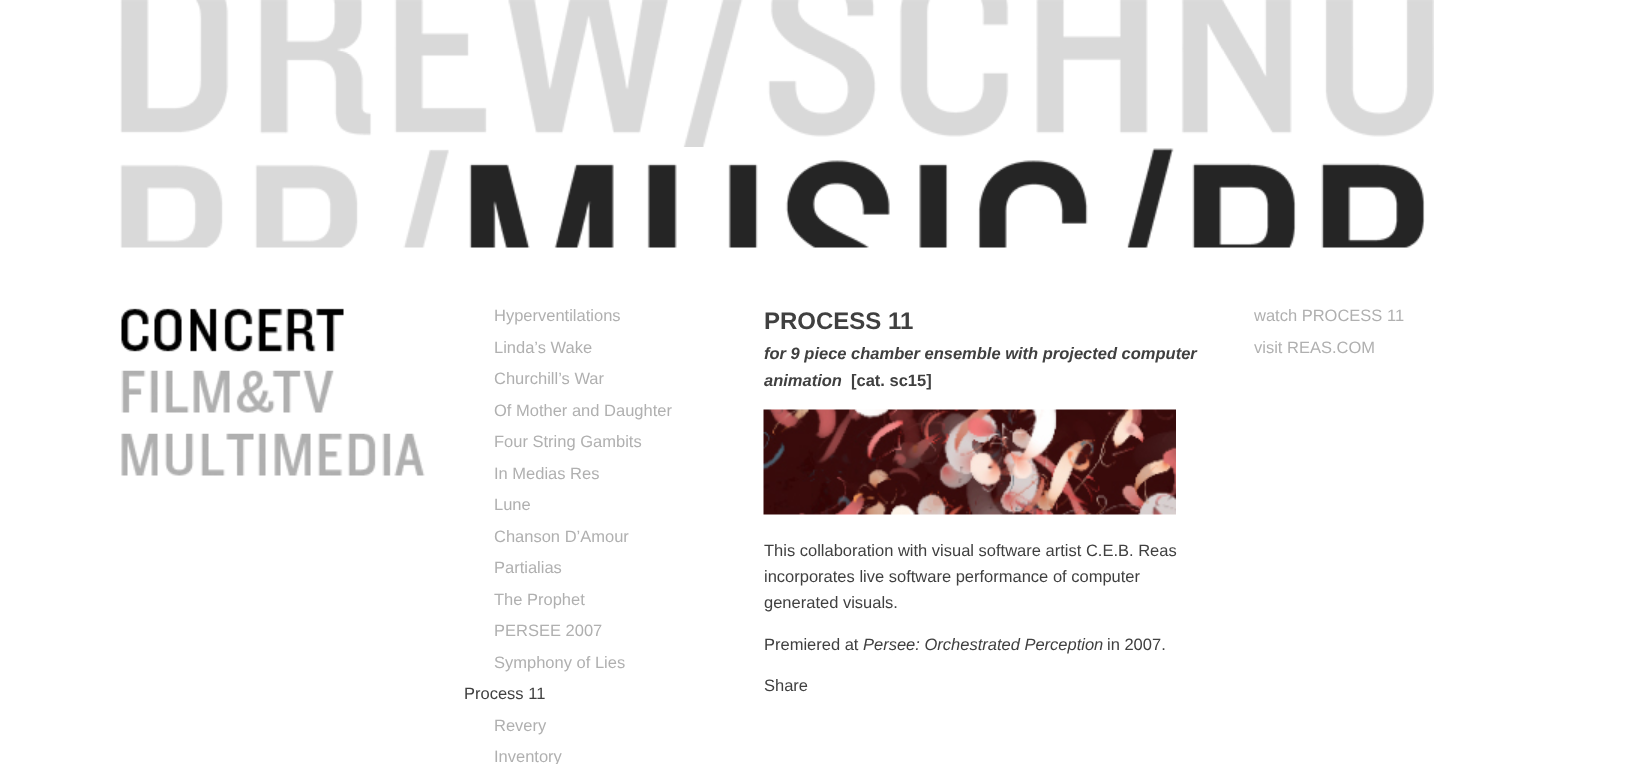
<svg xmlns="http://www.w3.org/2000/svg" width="1634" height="764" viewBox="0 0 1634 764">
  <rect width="100%" height="100%" fill="rgb(255,255,255)"/>
  <image x="120" y="0" width="1314" height="54" href="pic1.png"/>
  <image x="120" y="54" width="1314" height="93" href="pic2.png"/>
  <image x="120" y="149" width="329" height="99" href="pic3.png"/>
  <image x="469" y="148" width="956" height="100" href="pic4.png"/>
  <image x="121" y="308" width="223" height="44" href="pic5.png"/>
  <image x="121" y="370" width="213" height="43" href="pic6.png"/>
  <image x="121" y="433" width="304" height="43" href="pic7.png"/>
  <g font-family="Liberation Sans" font-size="16.5" fill="rgb(176,176,176)">
    <text>
      <tspan x="494" y="321">Hyperventilations</tspan>
      <tspan x="494" y="353">Linda’s Wake</tspan>
      <tspan x="494" y="384">Churchill’s War</tspan>
      <tspan x="494" y="416">Of Mother and Daughter</tspan>
      <tspan x="494" y="447">Four String Gambits</tspan>
      <tspan x="494" y="479">In Medias Res</tspan>
      <tspan x="494" y="510">Lune</tspan>
      <tspan x="494" y="542">Chanson D’Amour</tspan>
      <tspan x="494" y="573">Partialias</tspan>
      <tspan x="494" y="605">The Prophet</tspan>
      <tspan x="494" y="636">PERSEE 2007</tspan>
      <tspan x="494" y="668">Symphony of Lies</tspan>
    </text>
  </g>
  <text x="464" y="699" font-family="Liberation Sans" font-size="16.5" fill="rgb(64,64,64)">Process 11</text>
  <g font-family="Liberation Sans" font-size="16.5" fill="rgb(176,176,176)">
    <text>
      <tspan x="494" y="731">Revery</tspan>
      <tspan x="494" y="762">Inventory</tspan>
    </text>
  </g>
  <text x="764" y="329" font-family="Liberation Sans" font-size="24" font-weight="bold" fill="rgb(64,64,64)">PROCESS 11</text>
  <g font-family="Liberation Sans" font-size="16.5" font-weight="bold" font-style="italic" fill="rgb(64,64,64)">
    <text>
      <tspan x="764" y="359">for 9 piece chamber ensemble with projected computer</tspan>
      <tspan x="764" y="386">animation</tspan>
    </text>
  </g>
  <text x="851" y="386" font-family="Liberation Sans" font-size="16.5" font-weight="bold" fill="rgb(64,64,64)">[cat. sc15]</text>
  <image x="763" y="409" width="413" height="106" href="pic8.png"/>
  <g font-family="Liberation Sans" font-size="16.5" fill="rgb(64,64,64)">
    <text>
      <tspan x="764" y="556">This collaboration with visual software artist C.E.B. Reas</tspan>
      <tspan x="764" y="582">incorporates live software performance of computer</tspan>
      <tspan x="764" y="608">generated visuals.</tspan>
    </text>
    <text x="764" y="650">Premiered at</text>
  </g>
  <text x="863" y="650" font-family="Liberation Sans" font-size="16.5" font-style="italic" fill="rgb(64,64,64)">Persee: Orchestrated Perception</text>
  <g font-family="Liberation Sans" font-size="16.5" fill="rgb(64,64,64)">
    <text x="1107" y="650">in 2007.</text>
    <text x="764" y="691">Share</text>
  </g>
  <g font-family="Liberation Sans" font-size="16.5" fill="rgb(176,176,176)">
    <text>
      <tspan x="1254" y="321">watch PROCESS 11</tspan>
      <tspan x="1254" y="353">visit REAS.COM</tspan>
    </text>
  </g>
</svg>
